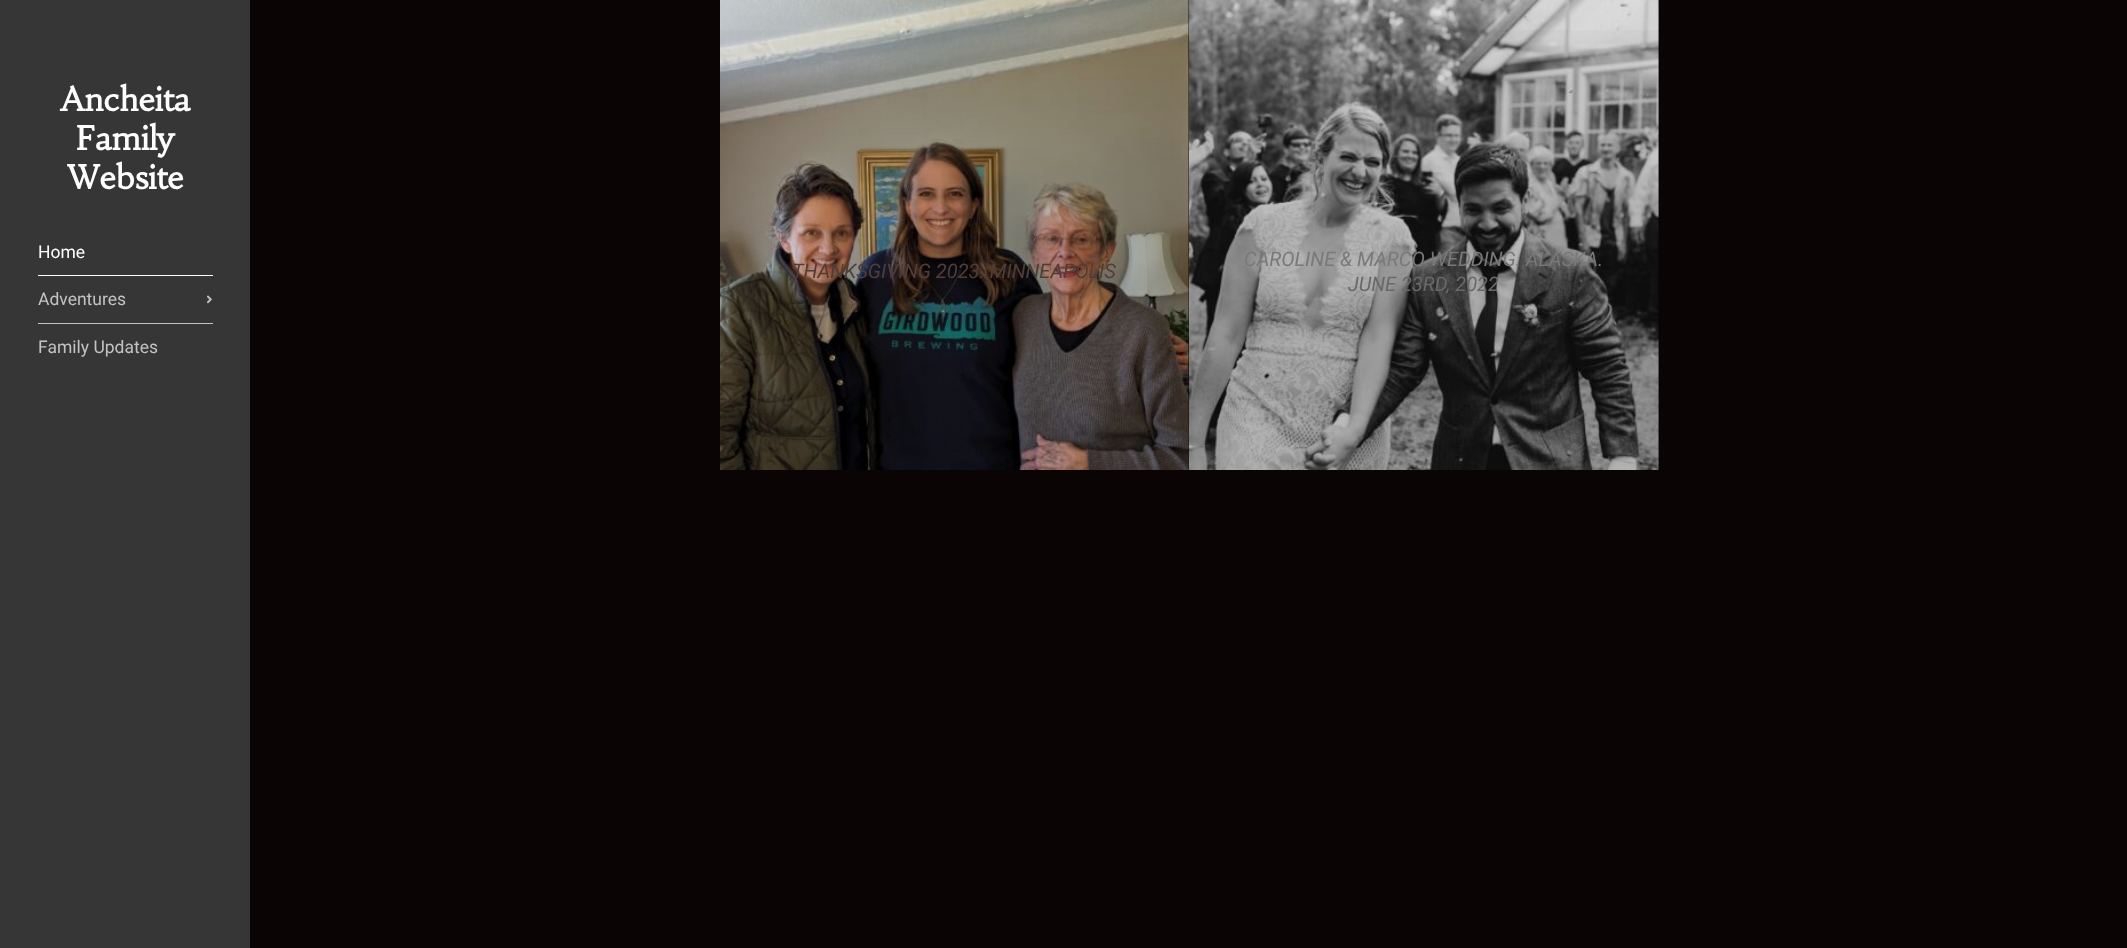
<svg xmlns="http://www.w3.org/2000/svg" width="2127" height="948" viewBox="0 0 2127 948">
  <defs>
    <linearGradient id="g1" gradientUnits="userSpaceOnUse" x1="954" y1="0" x2="954" y2="470"><stop offset="0" stop-color="rgb(0,0,0)" stop-opacity="0"/><stop offset="0.5" stop-color="rgb(0,0,0)" stop-opacity="0.17"/></linearGradient>
    <linearGradient id="g2" gradientUnits="userSpaceOnUse" x1="1424" y1="0" x2="1424" y2="470"><stop offset="0" stop-color="rgb(0,0,0)" stop-opacity="0"/><stop offset="0.5" stop-color="rgb(0,0,0)" stop-opacity="0.17"/></linearGradient>
  </defs>
  <rect width="100%" height="100%" fill="rgb(10,4,4)"/>
  <rect x="0" y="0" width="250" height="948" fill="rgb(54,54,54)"/>
  <g font-family="Habibi" font-size="32.5" font-weight="bold" fill="rgb(255,255,255)">
    <text x="60" y="111">Ancheita</text>
    <text x="76" y="150">Family</text>
    <text x="67" y="189">Website</text>
  </g>
  <rect x="38" y="275" width="175" height="1" fill="rgb(255,255,255)"/>
  <text x="38" y="258" font-family="Roboto" font-size="17.5" fill="rgb(255,255,255)">Home</text>
  <rect x="38" y="323" width="175" height="1" fill="rgb(195,195,195)"/>
  <text x="38" y="305" font-family="Roboto" font-size="17.5" fill="rgb(195,195,195)">Adventures</text>
  <image x="206" y="295" width="6" height="9" href="pic1.png"/>
  <text x="38" y="353" font-family="Roboto" font-size="17.5" fill="rgb(195,195,195)">Family Updates</text>
  <image x="720" y="0" width="469" height="470" href="pic2.png"/>
  <image x="1188" y="0" width="471" height="470" href="pic3.png"/>
  <rect x="720" y="30" width="469" height="440" fill="url(#g1)"/>
  <text x="792" y="278" font-family="Roboto" font-size="20" font-style="italic" fill="rgb(81,61,55)">THANKSGIVING 2023. MINNEAPOLIS</text>
  <rect x="1189" y="30" width="470" height="440" fill="url(#g2)"/>
  <text x="1244" y="266" font-family="Roboto" font-size="20" font-style="italic" fill="rgb(121,121,121)">CAROLINE &amp; MARCO WEDDING. ALASKA.</text>
  <text x="1348" y="291" font-family="Roboto" font-size="20" font-style="italic" fill="rgb(105,105,105)">JUNE 23RD, 2022</text>
</svg>
